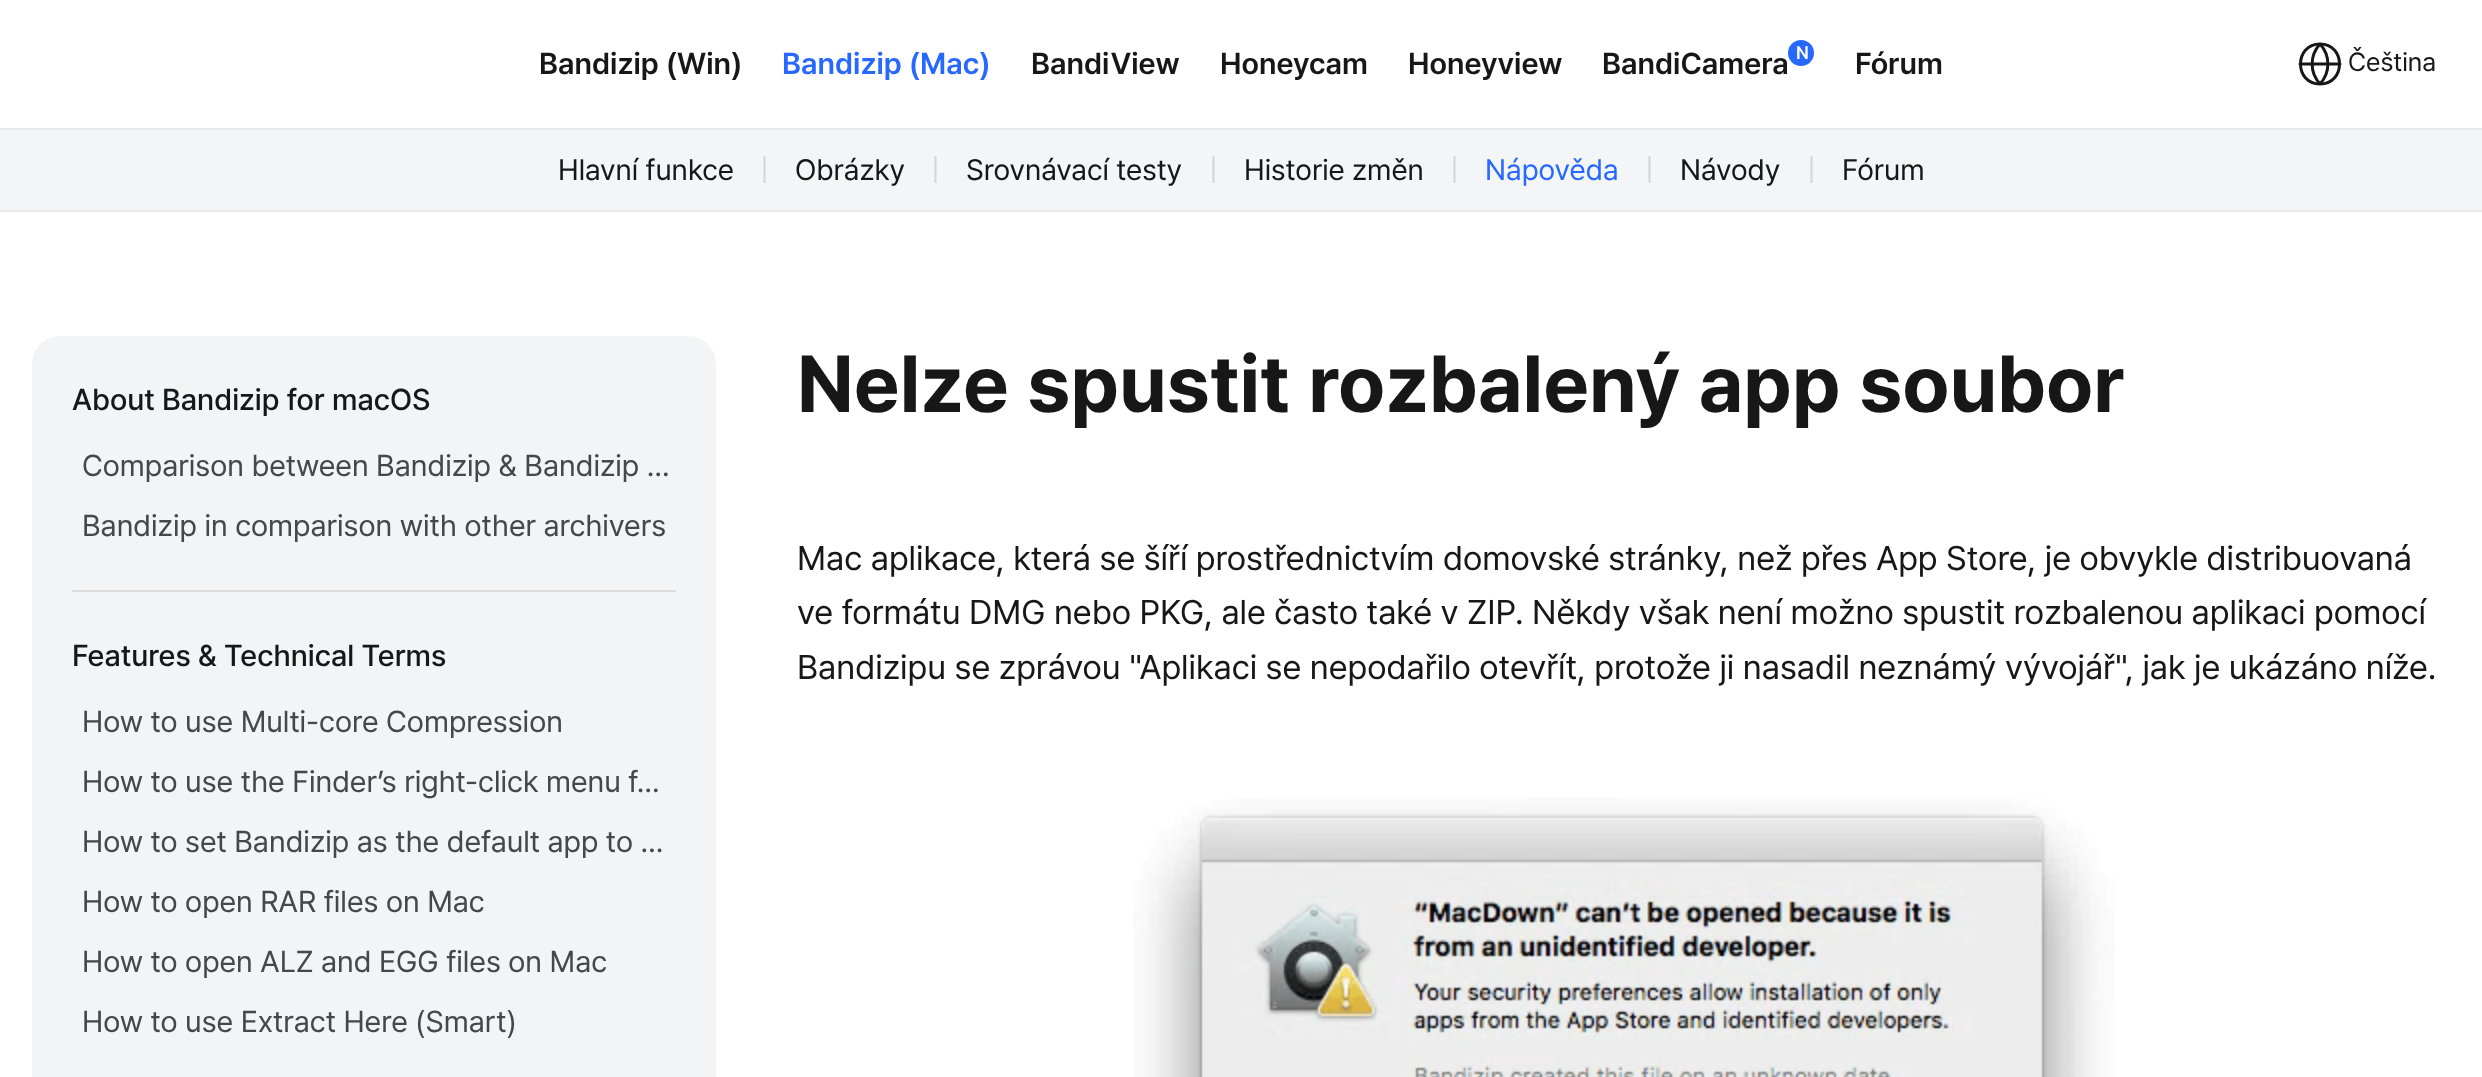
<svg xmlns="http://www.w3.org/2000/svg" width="2482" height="1077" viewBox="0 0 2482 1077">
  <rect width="100%" height="100%" fill="rgb(255,255,255)"/>
  <rect x="0" y="128" width="2482" height="2" fill="rgb(229,232,235)"/>
  <text x="539" y="74" font-family="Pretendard" font-size="30" font-weight="600" fill="rgb(23,23,23)">Bandizip (Win)</text>
  <text x="782" y="74" font-family="Pretendard" font-size="30" font-weight="600" fill="rgb(39,104,255)">Bandizip (Mac)</text>
  <g font-family="Pretendard" font-size="30" font-weight="600" fill="rgb(23,23,23)">
    <text x="1031" y="74">BandiView</text>
    <text x="1220" y="74">Honeycam</text>
    <text x="1408" y="74">Honeyview</text>
    <text x="1602" y="74">BandiCamera</text>
  </g>
  <circle cx="1801" cy="53" r="13" fill="rgb(39,104,255)"/>
  <text x="1796" y="59" font-family="Pretendard" font-size="18" font-weight="600" fill="rgb(255,255,255)">N</text>
  <text x="1855" y="74" font-family="Pretendard" font-size="30" font-weight="600" fill="rgb(23,23,23)">Fórum</text>
  <path d="M2320 84C2346 84 2346 44 2320 44C2294 44 2294 84 2320 84ZM2300 64H2340M2320 44C2330.5 55.5 2330.5 72.5 2320 84C2309.5 72.5 2309.5 55.5 2320 44Z" fill="none" stroke="rgb(23,23,23)" stroke-width="3" stroke-linecap="round" stroke-linejoin="round"/>
  <text x="2348" y="71" font-family="Pretendard" font-size="26" fill="rgb(23,23,23)">Čeština</text>
  <rect x="0" y="130" width="2482" height="80" fill="rgb(243,245,247)"/>
  <rect x="0" y="210" width="2482" height="2" fill="rgb(229,232,235)"/>
  <text x="558" y="180" font-family="Pretendard" font-size="29.25" fill="rgb(23,23,23)">Hlavní funkce</text>
  <text x="760" y="180" font-family="Pretendard" font-size="29.25" fill="rgb(211,215,219)">|</text>
  <text x="795" y="180" font-family="Pretendard" font-size="29.25" fill="rgb(23,23,23)">Obrázky</text>
  <text x="931" y="180" font-family="Pretendard" font-size="29.25" fill="rgb(211,215,219)">|</text>
  <text x="966" y="180" font-family="Pretendard" font-size="29.25" fill="rgb(23,23,23)">Srovnávací testy</text>
  <text x="1209" y="180" font-family="Pretendard" font-size="29.25" fill="rgb(211,215,219)">|</text>
  <text x="1244" y="180" font-family="Pretendard" font-size="29.25" fill="rgb(23,23,23)">Historie změn</text>
  <text x="1450" y="180" font-family="Pretendard" font-size="29.25" fill="rgb(211,215,219)">|</text>
  <text x="1485" y="180" font-family="Pretendard" font-size="29.25" fill="rgb(39,104,255)">Nápověda</text>
  <text x="1645" y="180" font-family="Pretendard" font-size="29.25" fill="rgb(211,215,219)">|</text>
  <text x="1680" y="180" font-family="Pretendard" font-size="29.25" fill="rgb(23,23,23)">Návody</text>
  <text x="1807" y="180" font-family="Pretendard" font-size="29.25" fill="rgb(211,215,219)">|</text>
  <text x="1842" y="180" font-family="Pretendard" font-size="29.25" fill="rgb(23,23,23)">Fórum</text>
  <rect x="32" y="336" width="684" height="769" rx="28" fill="rgb(242,244,246)"/>
  <text x="72" y="410" font-family="Pretendard" font-size="30" font-weight="500" fill="rgb(23,23,23)">About Bandizip for macOS</text>
  <g font-family="Pretendard" font-size="30" fill="rgb(68,72,77)">
    <text x="82" y="476">Comparison between Bandizip &amp; Bandizip …</text>
    <text x="82" y="536">Bandizip in comparison with other archivers</text>
  </g>
  <rect x="72" y="590" width="604" height="2" fill="rgb(221,221,221)"/>
  <text x="72" y="666" font-family="Pretendard" font-size="30" font-weight="500" fill="rgb(23,23,23)">Features &amp; Technical Terms</text>
  <g font-family="Pretendard" font-size="30" fill="rgb(68,72,77)">
    <text x="82" y="732">How to use Multi-core Compression</text>
    <text x="82" y="792">How to use the Finder’s right-click menu f…</text>
    <text x="82" y="852">How to set Bandizip as the default app to …</text>
    <text x="82" y="912">How to open RAR files on Mac</text>
    <text x="82" y="972">How to open ALZ and EGG files on Mac</text>
    <text x="82" y="1032">How to use Extract Here (Smart)</text>
  </g>
  <text x="797" y="412" font-family="Pretendard" font-size="80" font-weight="bold" fill="rgb(23,23,23)">Nelze spustit rozbalený app soubor</text>
  <g font-family="Pretendard" font-size="34" fill="rgb(23,23,23)">
    <text>
      <tspan x="797" y="570">Mac aplikace, která se šíří prostřednictvím domovské stránky, než přes App Store, je obvykle distribuovaná</tspan>
      <tspan x="797" y="624">ve formátu DMG nebo PKG, ale často také v ZIP. Někdy však není možno spustit rozbalenou aplikaci pomocí</tspan>
      <tspan x="797" y="679">Bandizipu se zprávou "Aplikaci se nepodařilo otevřít, protože ji nasadil neznámý vývojář", jak je ukázáno níže.</tspan>
    </text>
  </g>
  <image x="1133" y="797" width="982" height="280" href="pic1.png"/>
</svg>
